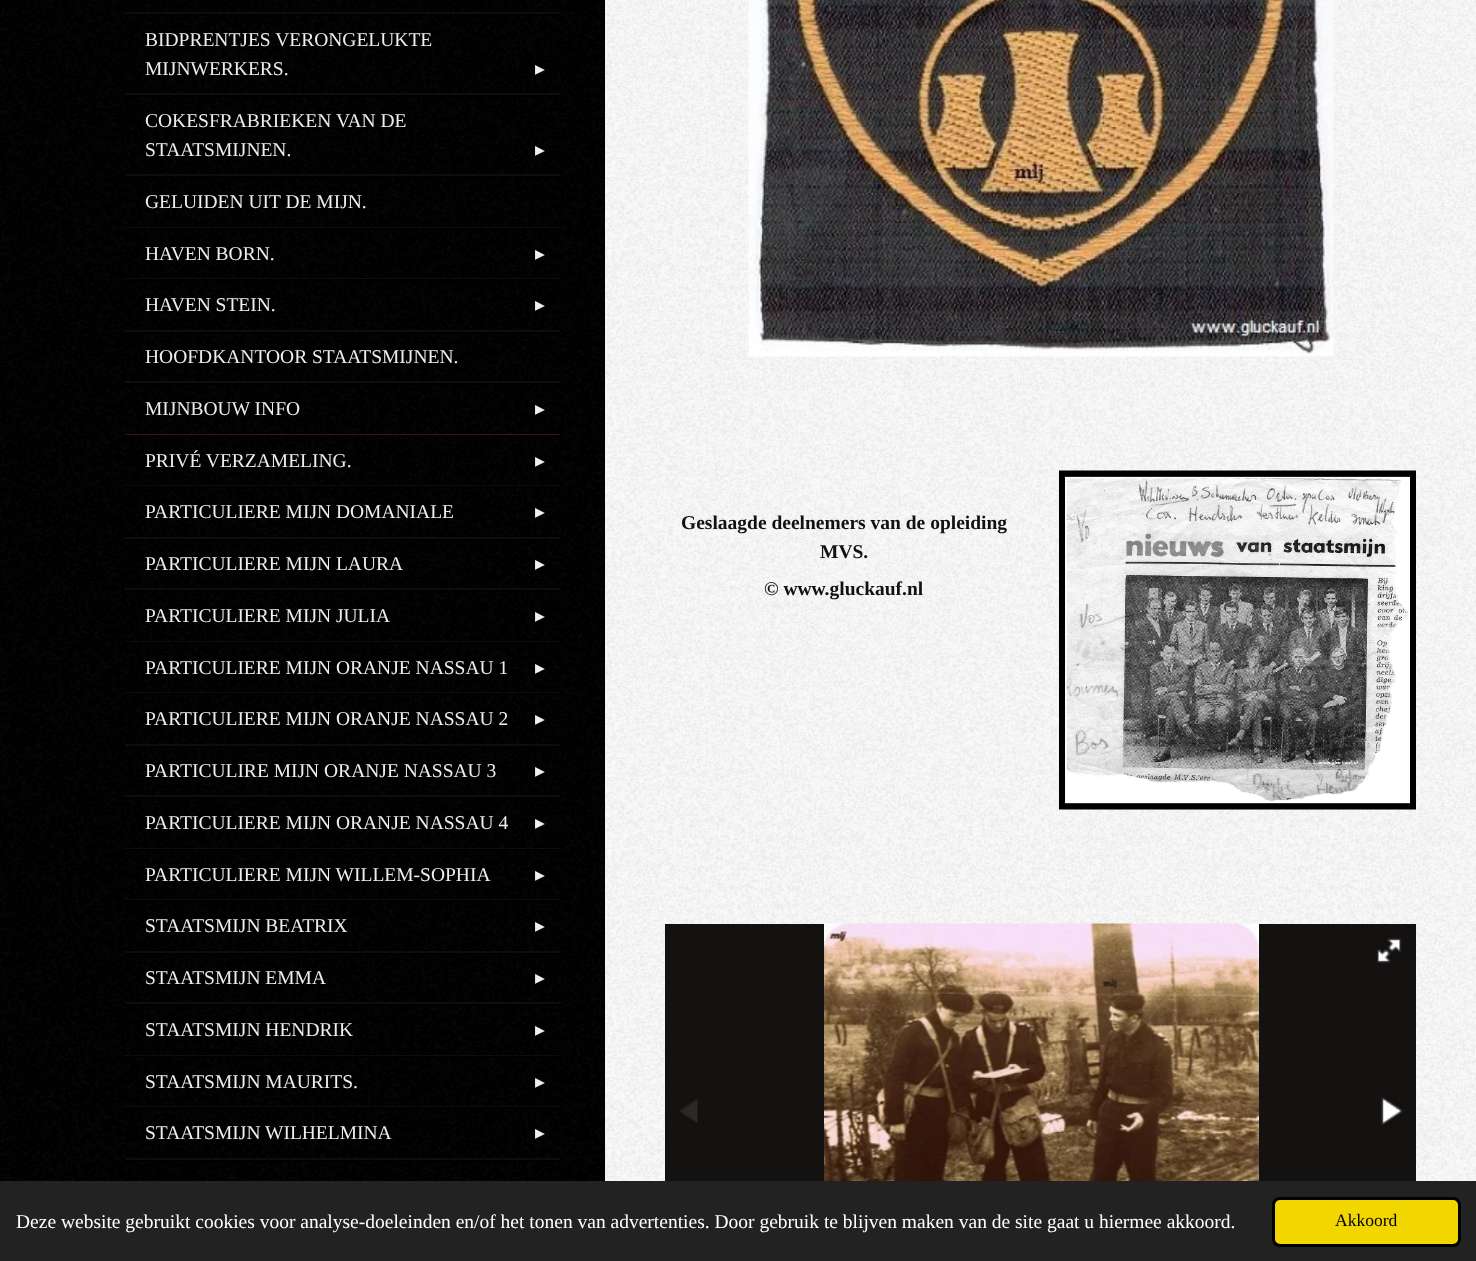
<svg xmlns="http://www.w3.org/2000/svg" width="1476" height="1261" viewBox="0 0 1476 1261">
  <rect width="100%" height="100%" fill="rgb(248,248,248)"/>
  <rect x="0" y="0" width="605" height="1181" fill="rgb(0,0,0)"/>
  <image x="0" y="0" width="604" height="1181" href="pic1.png"/>
  <rect x="125" y="12" width="435" height="2" fill="rgb(13,13,13)"/>
  <rect x="140" y="14" width="420" height="2" fill="rgb(0,0,0)"/>
  <rect x="125" y="93" width="435" height="2" fill="rgb(13,13,13)"/>
  <g font-family="Liberation Serif" font-size="19.5" fill="rgb(238,238,238)">
    <text>
      <tspan x="145" y="46">BIDPRENTJES VERONGELUKTE</tspan>
      <tspan x="145" y="75">MIJNWERKERS.</tspan>
    </text>
  </g>
  <text x="535" y="75" font-family="DejaVu Sans" font-size="19.5" fill="rgb(238,238,238)">▸</text>
  <rect x="125" y="95" width="435" height="2" fill="rgb(0,0,0)"/>
  <rect x="125" y="174" width="435" height="2" fill="rgb(13,13,13)"/>
  <g font-family="Liberation Serif" font-size="19.5" fill="rgb(238,238,238)">
    <text>
      <tspan x="145" y="127">COKESFRABRIEKEN VAN DE</tspan>
      <tspan x="145" y="156">STAATSMIJNEN.</tspan>
    </text>
  </g>
  <text x="535" y="156" font-family="DejaVu Sans" font-size="19.5" fill="rgb(238,238,238)">▸</text>
  <rect x="125" y="176" width="435" height="2" fill="rgb(0,0,0)"/>
  <rect x="125" y="227" width="435" height="1" fill="rgb(13,13,13)"/>
  <text x="145" y="208" font-family="Liberation Serif" font-size="19.5" fill="rgb(238,238,238)">GELUIDEN UIT DE MIJN.</text>
  <rect x="125" y="228" width="435" height="2" fill="rgb(0,0,0)"/>
  <rect x="125" y="278" width="435" height="1" fill="rgb(13,13,13)"/>
  <text x="145" y="260" font-family="Liberation Serif" font-size="19.5" fill="rgb(238,238,238)">HAVEN BORN.</text>
  <text x="535" y="260" font-family="DejaVu Sans" font-size="19.5" fill="rgb(238,238,238)">▸</text>
  <rect x="137" y="279" width="423" height="2" fill="rgb(0,0,0)"/>
  <rect x="125" y="330" width="435" height="2" fill="rgb(13,13,13)"/>
  <text x="145" y="311" font-family="Liberation Serif" font-size="19.5" fill="rgb(238,238,238)">HAVEN STEIN.</text>
  <text x="535" y="311" font-family="DejaVu Sans" font-size="19.5" fill="rgb(238,238,238)">▸</text>
  <rect x="125" y="332" width="435" height="2" fill="rgb(0,0,0)"/>
  <rect x="125" y="381" width="435" height="2" fill="rgb(13,13,13)"/>
  <text x="145" y="363" font-family="Liberation Serif" font-size="19.5" fill="rgb(238,238,238)">HOOFDKANTOOR STAATSMIJNEN.</text>
  <rect x="125" y="383" width="435" height="2" fill="rgb(0,0,0)"/>
  <rect x="125" y="434" width="435" height="1" fill="rgba(129,52,52,0.4)"/>
  <text x="145" y="415" font-family="Liberation Serif" font-size="19.5" fill="rgb(238,238,238)">MIJNBOUW INFO</text>
  <text x="535" y="415" font-family="DejaVu Sans" font-size="19.5" fill="rgb(238,238,238)">▸</text>
  <rect x="125" y="435" width="435" height="2" fill="rgb(0,0,0)"/>
  <rect x="125" y="485" width="435" height="1" fill="rgb(13,13,13)"/>
  <text x="145" y="467" font-family="Liberation Serif" font-size="19.5" fill="rgb(238,238,238)">PRIVÉ VERZAMELING.</text>
  <text x="535" y="467" font-family="DejaVu Sans" font-size="19.5" fill="rgb(238,238,238)">▸</text>
  <rect x="125" y="486" width="435" height="2" fill="rgb(0,0,0)"/>
  <rect x="125" y="537" width="435" height="2" fill="rgb(13,13,13)"/>
  <text x="145" y="518" font-family="Liberation Serif" font-size="19.5" fill="rgb(238,238,238)">PARTICULIERE MIJN DOMANIALE</text>
  <text x="535" y="518" font-family="DejaVu Sans" font-size="19.5" fill="rgb(238,238,238)">▸</text>
  <rect x="125" y="539" width="435" height="2" fill="rgb(0,0,0)"/>
  <rect x="125" y="588" width="435" height="2" fill="rgb(13,13,13)"/>
  <text x="145" y="570" font-family="Liberation Serif" font-size="19.5" fill="rgb(238,238,238)">PARTICULIERE MIJN LAURA</text>
  <text x="535" y="570" font-family="DejaVu Sans" font-size="19.5" fill="rgb(238,238,238)">▸</text>
  <rect x="125" y="590" width="435" height="2" fill="rgb(0,0,0)"/>
  <rect x="125" y="641" width="435" height="1" fill="rgb(13,13,13)"/>
  <text x="145" y="622" font-family="Liberation Serif" font-size="19.5" fill="rgb(238,238,238)">PARTICULIERE MIJN JULIA</text>
  <text x="535" y="622" font-family="DejaVu Sans" font-size="19.5" fill="rgb(238,238,238)">▸</text>
  <rect x="125" y="642" width="435" height="2" fill="rgb(0,0,0)"/>
  <rect x="125" y="692" width="435" height="1" fill="rgb(13,13,13)"/>
  <text x="145" y="674" font-family="Liberation Serif" font-size="19.5" fill="rgb(238,238,238)">PARTICULIERE MIJN ORANJE NASSAU 1</text>
  <text x="535" y="674" font-family="DejaVu Sans" font-size="19.5" fill="rgb(238,238,238)">▸</text>
  <rect x="125" y="693" width="435" height="2" fill="rgb(0,0,0)"/>
  <rect x="125" y="744" width="435" height="2" fill="rgb(13,13,13)"/>
  <text x="145" y="725" font-family="Liberation Serif" font-size="19.5" fill="rgb(238,238,238)">PARTICULIERE MIJN ORANJE NASSAU 2</text>
  <text x="535" y="725" font-family="DejaVu Sans" font-size="19.5" fill="rgb(238,238,238)">▸</text>
  <rect x="134" y="746" width="426" height="2" fill="rgb(0,0,0)"/>
  <rect x="125" y="795" width="435" height="2" fill="rgb(13,13,13)"/>
  <text x="145" y="777" font-family="Liberation Serif" font-size="19.5" fill="rgb(238,238,238)">PARTICULIRE MIJN ORANJE NASSAU 3</text>
  <text x="535" y="777" font-family="DejaVu Sans" font-size="19.5" fill="rgb(238,238,238)">▸</text>
  <rect x="141" y="797" width="419" height="2" fill="rgb(0,0,0)"/>
  <rect x="125" y="848" width="435" height="1" fill="rgb(13,13,13)"/>
  <text x="145" y="829" font-family="Liberation Serif" font-size="19.5" fill="rgb(238,238,238)">PARTICULIERE MIJN ORANJE NASSAU 4</text>
  <text x="535" y="829" font-family="DejaVu Sans" font-size="19.5" fill="rgb(238,238,238)">▸</text>
  <rect x="125" y="849" width="435" height="2" fill="rgb(0,0,0)"/>
  <rect x="125" y="899" width="435" height="1" fill="rgb(13,13,13)"/>
  <text x="145" y="881" font-family="Liberation Serif" font-size="19.5" fill="rgb(238,238,238)">PARTICULIERE MIJN WILLEM-SOPHIA</text>
  <text x="535" y="881" font-family="DejaVu Sans" font-size="19.5" fill="rgb(238,238,238)">▸</text>
  <rect x="125" y="900" width="435" height="2" fill="rgb(0,0,0)"/>
  <rect x="125" y="951" width="435" height="2" fill="rgb(13,13,13)"/>
  <text x="145" y="932" font-family="Liberation Serif" font-size="19.5" fill="rgb(238,238,238)">STAATSMIJN BEATRIX</text>
  <text x="535" y="932" font-family="DejaVu Sans" font-size="19.5" fill="rgb(238,238,238)">▸</text>
  <rect x="125" y="953" width="435" height="2" fill="rgb(0,0,0)"/>
  <rect x="125" y="1002" width="435" height="2" fill="rgb(13,13,13)"/>
  <text x="145" y="984" font-family="Liberation Serif" font-size="19.5" fill="rgb(238,238,238)">STAATSMIJN EMMA</text>
  <text x="535" y="984" font-family="DejaVu Sans" font-size="19.5" fill="rgb(238,238,238)">▸</text>
  <rect x="125" y="1004" width="435" height="2" fill="rgb(0,0,0)"/>
  <rect x="125" y="1055" width="435" height="1" fill="rgb(13,13,13)"/>
  <text x="145" y="1036" font-family="Liberation Serif" font-size="19.5" fill="rgb(238,238,238)">STAATSMIJN HENDRIK</text>
  <text x="535" y="1036" font-family="DejaVu Sans" font-size="19.5" fill="rgb(238,238,238)">▸</text>
  <rect x="125" y="1056" width="435" height="2" fill="rgb(0,0,0)"/>
  <rect x="125" y="1106" width="435" height="1" fill="rgb(13,13,13)"/>
  <text x="145" y="1088" font-family="Liberation Serif" font-size="19.5" fill="rgb(238,238,238)">STAATSMIJN MAURITS.</text>
  <text x="535" y="1088" font-family="DejaVu Sans" font-size="19.5" fill="rgb(238,238,238)">▸</text>
  <rect x="125" y="1107" width="435" height="2" fill="rgb(0,0,0)"/>
  <rect x="125" y="1158" width="435" height="2" fill="rgb(13,13,13)"/>
  <text x="145" y="1139" font-family="Liberation Serif" font-size="19.5" fill="rgb(238,238,238)">STAATSMIJN WILHELMINA</text>
  <text x="535" y="1139" font-family="DejaVu Sans" font-size="19.5" fill="rgb(238,238,238)">▸</text>
  <rect x="125" y="1160" width="435" height="2" fill="rgb(0,0,0)"/>
  <image x="605" y="0" width="871" height="1181" href="pic8.png"/>
  <image x="748" y="0" width="586" height="357" href="pic2.png"/>
  <g font-family="Liberation Serif" font-size="19.5" font-weight="bold" fill="rgb(17,17,17)">
    <text x="681" y="529">Geslaagde deelnemers van de opleiding</text>
    <text x="820" y="558">MVS.</text>
    <text x="764" y="595">© www.gluckauf.nl</text>
  </g>
  <image x="1059" y="470" width="357" height="340" href="pic3.png"/>
  <rect x="665" y="924" width="751" height="257" fill="rgb(20,17,17)"/>
  <image x="824" y="923" width="435" height="258" href="pic4.png"/>
  <image x="1377" y="938" width="25" height="25" href="pic5.png"/>
  <image x="679" y="1099" width="19" height="24" href="pic6.png"/>
  <image x="1381" y="1097" width="22" height="28" href="pic7.png"/>
  <rect x="0" y="1181" width="1476" height="80" fill="rgb(34,34,34)"/>
  <text x="16" y="1228" font-family="Liberation Serif" font-size="19.5" fill="rgb(255,255,255)">Deze website gebruikt cookies voor analyse-doeleinden en/of het tonen van advertenties. Door gebruik te blijven maken van de site gaat u hiermee akkoord.</text>
  <rect x="1273.5" y="1198.5" width="186" height="47" rx="6.5" fill="rgb(241,214,0)" stroke="rgb(0,0,0)" stroke-width="3"/>
  <text x="1335" y="1226" font-family="Liberation Serif" font-size="17.5" fill="rgb(0,0,0)">Akkoord</text>
</svg>
